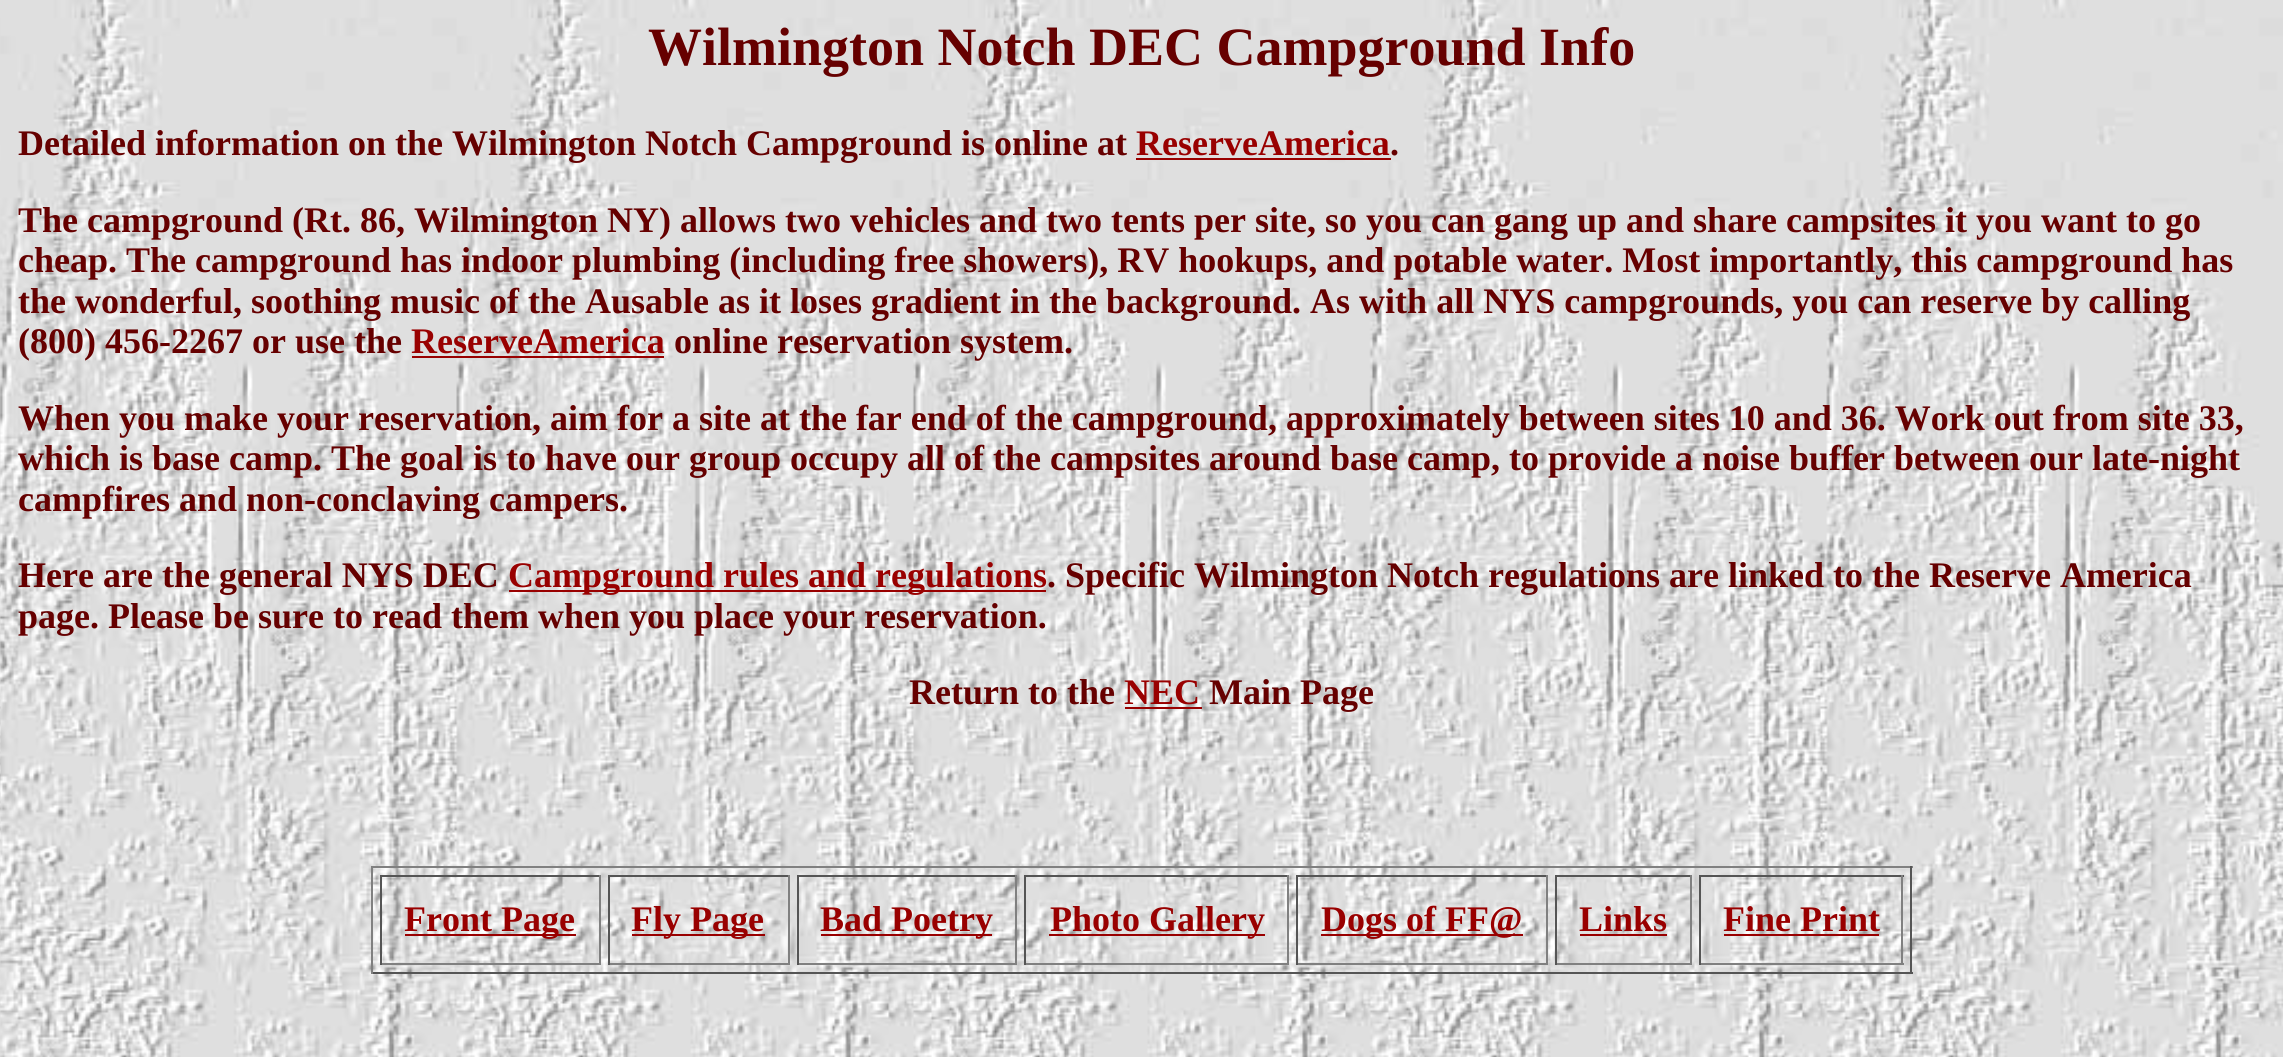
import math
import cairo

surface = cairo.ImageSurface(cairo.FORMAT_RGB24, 2283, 1057)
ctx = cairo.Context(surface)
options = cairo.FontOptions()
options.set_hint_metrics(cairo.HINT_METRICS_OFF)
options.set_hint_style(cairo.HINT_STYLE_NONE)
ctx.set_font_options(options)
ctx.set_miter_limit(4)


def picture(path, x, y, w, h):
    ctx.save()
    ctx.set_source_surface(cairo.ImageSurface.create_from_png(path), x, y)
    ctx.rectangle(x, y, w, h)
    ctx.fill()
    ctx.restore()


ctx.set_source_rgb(1, 1, 1)
ctx.paint()
picture("img1.png", 0, 0, 2283, 1057)
ctx.select_font_face("Liberation Serif", cairo.FONT_SLANT_NORMAL, cairo.FONT_WEIGHT_BOLD)
ctx.set_font_size(54)
ctx.set_source_rgb(0.4, 0, 0)
ctx.move_to(648, 65)
ctx.show_text("Wilmington Notch DEC Campground Info")
ctx.set_font_size(36)
ctx.move_to(18, 155)
ctx.show_text("Detailed information on the Wilmington Notch Campground is online at")
ctx.set_source_rgb(0.6, 0, 0)
ctx.move_to(1136, 155)
ctx.show_text("ReserveAmerica")
ctx.rectangle(1136, 158, 255, 2)
ctx.fill()
ctx.set_source_rgb(0.4, 0, 0)
ctx.move_to(1390, 155)
ctx.show_text(".")
ctx.move_to(18, 232)
ctx.show_text("The campground (Rt. 86, Wilmington NY) allows two vehicles and two tents per site, so you can gang up and share campsites it you want to go")
ctx.move_to(18, 272)
ctx.show_text("cheap. The campground has indoor plumbing (including free showers), RV hookups, and potable water. Most importantly, this campground has")
ctx.move_to(18, 313)
ctx.show_text("the wonderful, soothing music of the Ausable as it loses gradient in the background. As with all NYS campgrounds, you can reserve by calling")
ctx.move_to(18, 353)
ctx.show_text("(800) 456-2267 or use the")
ctx.set_source_rgb(0.6, 0, 0)
ctx.move_to(411, 353)
ctx.show_text("ReserveAmerica")
ctx.rectangle(412, 356, 252, 2)
ctx.fill()
ctx.set_source_rgb(0.4, 0, 0)
ctx.move_to(674, 353)
ctx.show_text("online reservation system.")
ctx.move_to(18, 430)
ctx.show_text("When you make your reservation, aim for a site at the far end of the campground, approximately between sites 10 and 36. Work out from site 33,")
ctx.move_to(18, 470)
ctx.show_text("which is base camp. The goal is to have our group occupy all of the campsites around base camp, to provide a noise buffer between our late-night")
ctx.move_to(18, 511)
ctx.show_text("campfires and non-conclaving campers.")
ctx.move_to(18, 587)
ctx.show_text("Here are the general NYS DEC")
ctx.set_source_rgb(0.6, 0, 0)
ctx.rectangle(509, 590, 537, 2)
ctx.fill()
ctx.move_to(508, 587)
ctx.show_text("Campground rules and regulations")
ctx.set_source_rgb(0.4, 0, 0)
ctx.move_to(1047, 587)
ctx.show_text(". Specific Wilmington Notch regulations are linked to the Reserve America")
ctx.move_to(18, 628)
ctx.show_text("page. Please be sure to read them when you place your reservation.")
ctx.move_to(909, 704)
ctx.show_text("Return to the")
ctx.set_source_rgb(0.6, 0, 0)
ctx.move_to(1124, 704)
ctx.show_text("NEC")
ctx.rectangle(1125, 707, 77, 2)
ctx.fill()
ctx.set_source_rgb(0.4, 0, 0)
ctx.move_to(1209, 704)
ctx.show_text("Main Page")
ctx.set_source_rgb(0.502, 0.502, 0.502)
ctx.rectangle(371, 866, 1542, 2)
ctx.fill()
ctx.set_source_rgb(0.333, 0.333, 0.333)
ctx.rectangle(1910, 866, 2, 108)
ctx.fill()
ctx.rectangle(371, 972, 1542, 2)
ctx.fill()
ctx.set_source_rgb(0.502, 0.502, 0.502)
ctx.rectangle(371, 866, 2, 108)
ctx.fill()
ctx.set_source_rgb(0.333, 0.333, 0.333)
ctx.rectangle(380, 875, 221, 2)
ctx.fill()
ctx.set_source_rgb(0.502, 0.502, 0.502)
ctx.rectangle(599, 875, 2, 90)
ctx.fill()
ctx.rectangle(380, 963, 221, 2)
ctx.fill()
ctx.set_source_rgb(0.333, 0.333, 0.333)
ctx.rectangle(380, 875, 2, 90)
ctx.fill()
ctx.set_source_rgb(0.6, 0, 0)
ctx.rectangle(405, 934, 171, 2)
ctx.fill()
ctx.move_to(404, 931)
ctx.show_text("Front Page")
ctx.set_source_rgb(0.333, 0.333, 0.333)
ctx.rectangle(608, 875, 182, 2)
ctx.fill()
ctx.set_source_rgb(0.502, 0.502, 0.502)
ctx.rectangle(788, 875, 2, 90)
ctx.fill()
ctx.rectangle(608, 963, 182, 2)
ctx.fill()
ctx.set_source_rgb(0.333, 0.333, 0.333)
ctx.rectangle(608, 875, 2, 90)
ctx.fill()
ctx.set_source_rgb(0.6, 0, 0)
ctx.rectangle(632, 934, 133, 2)
ctx.fill()
ctx.move_to(631, 931)
ctx.show_text("Fly Page")
ctx.set_source_rgb(0.333, 0.333, 0.333)
ctx.rectangle(797, 875, 220, 2)
ctx.fill()
ctx.set_source_rgb(0.502, 0.502, 0.502)
ctx.rectangle(1015, 875, 2, 90)
ctx.fill()
ctx.rectangle(797, 963, 220, 2)
ctx.fill()
ctx.set_source_rgb(0.333, 0.333, 0.333)
ctx.rectangle(797, 875, 2, 90)
ctx.fill()
ctx.set_source_rgb(0.6, 0, 0)
ctx.rectangle(821, 934, 171, 2)
ctx.fill()
ctx.move_to(820, 931)
ctx.show_text("Bad Poetry")
ctx.set_source_rgb(0.333, 0.333, 0.333)
ctx.rectangle(1024, 875, 265, 2)
ctx.fill()
ctx.set_source_rgb(0.502, 0.502, 0.502)
ctx.rectangle(1287, 875, 2, 90)
ctx.fill()
ctx.rectangle(1024, 963, 265, 2)
ctx.fill()
ctx.set_source_rgb(0.333, 0.333, 0.333)
ctx.rectangle(1024, 875, 2, 90)
ctx.fill()
ctx.set_source_rgb(0.6, 0, 0)
ctx.rectangle(1049, 934, 216, 2)
ctx.fill()
ctx.move_to(1050, 931)
ctx.show_text("Photo Gallery")
ctx.set_source_rgb(0.333, 0.333, 0.333)
ctx.rectangle(1296, 875, 252, 2)
ctx.fill()
ctx.set_source_rgb(0.502, 0.502, 0.502)
ctx.rectangle(1546, 875, 2, 90)
ctx.fill()
ctx.rectangle(1296, 963, 252, 2)
ctx.fill()
ctx.set_source_rgb(0.333, 0.333, 0.333)
ctx.rectangle(1296, 875, 2, 90)
ctx.fill()
ctx.set_source_rgb(0.6, 0, 0)
ctx.rectangle(1321, 934, 202, 2)
ctx.fill()
ctx.move_to(1321, 931)
ctx.show_text("Dogs of FF@")
ctx.set_source_rgb(0.333, 0.333, 0.333)
ctx.rectangle(1555, 875, 137, 2)
ctx.fill()
ctx.set_source_rgb(0.502, 0.502, 0.502)
ctx.rectangle(1690, 875, 2, 90)
ctx.fill()
ctx.rectangle(1555, 963, 137, 2)
ctx.fill()
ctx.set_source_rgb(0.333, 0.333, 0.333)
ctx.rectangle(1555, 875, 2, 90)
ctx.fill()
ctx.set_source_rgb(0.6, 0, 0)
ctx.move_to(1579, 931)
ctx.show_text("Links")
ctx.rectangle(1580, 934, 87, 2)
ctx.fill()
ctx.set_source_rgb(0.333, 0.333, 0.333)
ctx.rectangle(1699, 875, 205, 2)
ctx.fill()
ctx.set_source_rgb(0.502, 0.502, 0.502)
ctx.rectangle(1901, 875, 2, 90)
ctx.fill()
ctx.rectangle(1699, 963, 205, 2)
ctx.fill()
ctx.set_source_rgb(0.333, 0.333, 0.333)
ctx.rectangle(1699, 875, 2, 90)
ctx.fill()
ctx.set_source_rgb(0.6, 0, 0)
ctx.move_to(1723, 931)
ctx.show_text("Fine Print")
ctx.rectangle(1724, 934, 155, 2)
ctx.fill()
surface.write_to_png("page.png")
